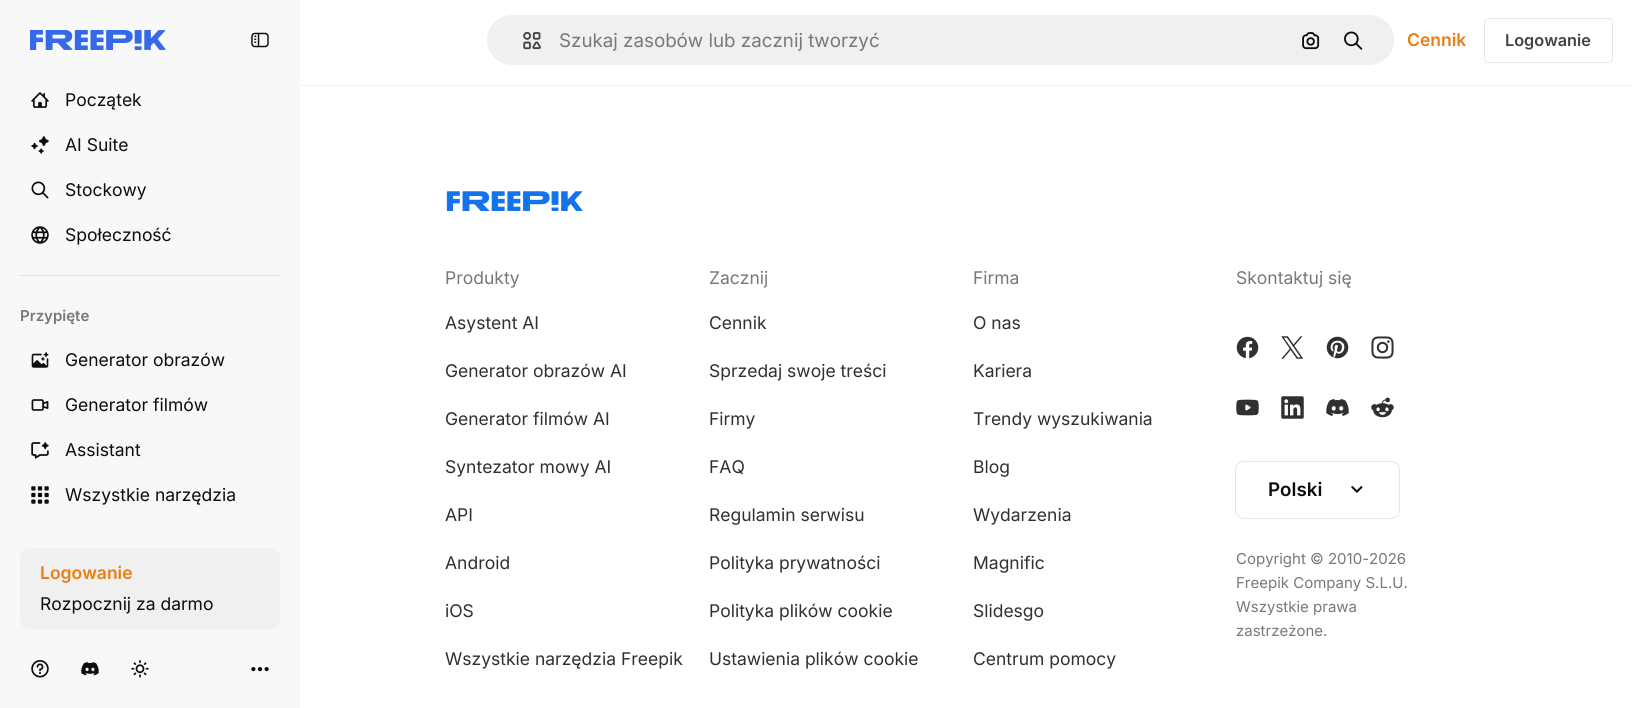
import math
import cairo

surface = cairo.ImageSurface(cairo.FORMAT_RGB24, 1632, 708)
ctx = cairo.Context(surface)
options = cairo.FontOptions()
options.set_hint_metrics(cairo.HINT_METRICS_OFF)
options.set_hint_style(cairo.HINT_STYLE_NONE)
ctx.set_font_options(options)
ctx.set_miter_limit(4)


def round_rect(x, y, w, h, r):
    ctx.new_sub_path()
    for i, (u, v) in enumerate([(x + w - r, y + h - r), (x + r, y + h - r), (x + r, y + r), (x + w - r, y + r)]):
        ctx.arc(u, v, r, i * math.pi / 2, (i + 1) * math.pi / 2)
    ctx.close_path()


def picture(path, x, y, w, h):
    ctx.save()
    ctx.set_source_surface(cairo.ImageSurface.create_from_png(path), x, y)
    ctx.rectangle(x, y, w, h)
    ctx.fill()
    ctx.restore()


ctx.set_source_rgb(1, 1, 1)
ctx.paint()
ctx.set_source_rgb(0.969, 0.969, 0.969)
ctx.rectangle(0, 0, 300, 708)
ctx.fill()
picture("img1.png", 30, 30, 136, 20)
picture("img2.png", 251, 32, 18, 16)
picture("img3.png", 31, 92, 18, 16)
ctx.select_font_face("Inter")
ctx.set_font_size(17.5)
ctx.set_source_rgb(0.051, 0.051, 0.051)
ctx.move_to(65, 106)
ctx.show_text("Początek")
picture("img4.png", 31, 136, 18, 18)
ctx.move_to(65, 151)
ctx.show_text("AI Suite")
picture("img5.png", 31, 181, 18, 18)
ctx.move_to(65, 196)
ctx.show_text("Stockowy")
picture("img6.png", 31, 226, 18, 18)
ctx.move_to(65, 241)
ctx.show_text("Społeczność")
ctx.set_source_rgb(0.878, 0.878, 0.878)
ctx.rectangle(20, 275, 260, 1)
ctx.fill()
ctx.select_font_face("Inter SemiBold")
ctx.set_font_size(15)
ctx.set_source_rgb(0.471, 0.471, 0.471)
ctx.move_to(20, 321)
ctx.show_text("Przypięte")
picture("img7.png", 31, 352, 18, 16)
ctx.select_font_face("Inter")
ctx.set_font_size(17.5)
ctx.set_source_rgb(0.051, 0.051, 0.051)
ctx.move_to(65, 366)
ctx.show_text("Generator obrazów")
picture("img8.png", 31, 399, 18, 12)
ctx.move_to(65, 411)
ctx.show_text("Generator filmów")
picture("img9.png", 31, 442, 18, 17)
ctx.move_to(65, 456)
ctx.show_text("Assistant")
picture("img10.png", 31, 486, 18, 18)
ctx.move_to(65, 501)
ctx.show_text("Wszystkie narzędzia")
ctx.set_source_rgb(0.941, 0.941, 0.941)
round_rect(20, 548, 260, 81, 10)
ctx.fill()
ctx.select_font_face("Inter SemiBold")
ctx.set_source_rgb(0.918, 0.494, 0.067)
ctx.move_to(40, 579)
ctx.show_text("Logowanie")
ctx.select_font_face("Inter")
ctx.set_source_rgb(0.051, 0.051, 0.051)
ctx.move_to(40, 610)
ctx.show_text("Rozpocznij za darmo")
picture("img11.png", 31, 660, 18, 18)
picture("img12.png", 81, 662, 18, 14)
picture("img13.png", 131, 660, 18, 18)
picture("img14.png", 251, 667, 18, 5)
ctx.set_source_rgb(0.941, 0.941, 0.941)
round_rect(486.5, 14.5, 908, 51, 25.5)
ctx.fill_preserve()
ctx.set_source_rgb(1, 1, 1)
ctx.set_line_width(1)
ctx.stroke()
picture("img15.png", 523, 31, 18, 19)
ctx.set_font_size(18.75)
ctx.set_source_rgb(0.471, 0.471, 0.471)
ctx.move_to(559, 47)
ctx.show_text("Szukaj zasobów lub zacznij tworzyć")
picture("img16.png", 1302, 32, 18, 18)
picture("img17.png", 1344, 31, 19, 19)
ctx.select_font_face("Inter SemiBold")
ctx.set_font_size(17.5)
ctx.set_source_rgb(0.918, 0.494, 0.067)
ctx.move_to(1407, 46)
ctx.show_text("Cennik")
round_rect(1484.5, 18.5, 128, 44, 4.5)
ctx.set_source_rgb(0.906, 0.906, 0.906)
ctx.stroke()
ctx.set_font_size(16.25)
ctx.set_source_rgb(0.259, 0.259, 0.259)
ctx.move_to(1505, 46)
ctx.show_text("Logowanie")
ctx.set_source_rgb(0.941, 0.941, 0.941)
ctx.rectangle(300, 85, 1332, 1)
ctx.fill()
picture("img18.png", 446, 191, 137, 20)
ctx.select_font_face("Inter")
ctx.set_font_size(17.5)
ctx.set_source_rgb(0.471, 0.471, 0.471)
ctx.move_to(445, 284)
ctx.show_text("Produkty")
ctx.set_source_rgb(0.188, 0.188, 0.188)
ctx.move_to(445, 329)
ctx.show_text("Asystent AI")
ctx.move_to(445, 377)
ctx.show_text("Generator obrazów AI")
ctx.move_to(445, 425)
ctx.show_text("Generator filmów AI")
ctx.move_to(445, 473)
ctx.show_text("Syntezator mowy AI")
ctx.move_to(445, 521)
ctx.show_text("API")
ctx.move_to(445, 569)
ctx.show_text("Android")
ctx.move_to(445, 617)
ctx.show_text("iOS")
ctx.move_to(445, 665)
ctx.show_text("Wszystkie narzędzia Freepik")
ctx.set_source_rgb(0.471, 0.471, 0.471)
ctx.move_to(709, 284)
ctx.show_text("Zacznij")
ctx.set_source_rgb(0.188, 0.188, 0.188)
ctx.move_to(709, 329)
ctx.show_text("Cennik")
ctx.move_to(709, 377)
ctx.show_text("Sprzedaj swoje treści")
ctx.move_to(709, 425)
ctx.show_text("Firmy")
ctx.move_to(709, 473)
ctx.show_text("FAQ")
ctx.move_to(709, 521)
ctx.show_text("Regulamin serwisu")
ctx.move_to(709, 569)
ctx.show_text("Polityka prywatności")
ctx.move_to(709, 617)
ctx.show_text("Polityka plików cookie")
ctx.move_to(709, 665)
ctx.show_text("Ustawienia plików cookie")
ctx.set_source_rgb(0.471, 0.471, 0.471)
ctx.move_to(973, 284)
ctx.show_text("Firma")
ctx.set_source_rgb(0.188, 0.188, 0.188)
ctx.move_to(973, 329)
ctx.show_text("O nas")
ctx.move_to(973, 377)
ctx.show_text("Kariera")
ctx.move_to(973, 425)
ctx.show_text("Trendy wyszukiwania")
ctx.move_to(973, 473)
ctx.show_text("Blog")
ctx.move_to(973, 521)
ctx.show_text("Wydarzenia")
ctx.move_to(973, 569)
ctx.show_text("Magnific")
ctx.move_to(973, 617)
ctx.show_text("Slidesgo")
ctx.move_to(973, 665)
ctx.show_text("Centrum pomocy")
ctx.set_source_rgb(0.471, 0.471, 0.471)
ctx.move_to(1236, 284)
ctx.show_text("Skontaktuj się")
picture("img19.png", 1236, 336, 23, 23)
picture("img20.png", 1281, 336, 23, 23)
picture("img21.png", 1326, 336, 23, 23)
picture("img22.png", 1371, 336, 23, 23)
picture("img23.png", 1236, 399, 23, 17)
picture("img24.png", 1281, 396, 23, 23)
picture("img25.png", 1326, 399, 23, 17)
picture("img26.png", 1371, 397, 23, 21)
round_rect(1235.5, 461.5, 164, 57, 8.5)
ctx.set_source_rgb(0.902, 0.902, 0.902)
ctx.stroke()
ctx.select_font_face("Inter SemiBold")
ctx.set_font_size(18.75)
ctx.set_source_rgb(0.051, 0.051, 0.051)
ctx.move_to(1268, 496)
ctx.show_text("Polski")
picture("img27.png", 1351, 486, 12, 7)
ctx.select_font_face("Inter")
ctx.set_font_size(15)
ctx.set_source_rgb(0.471, 0.471, 0.471)
ctx.move_to(1236, 564)
ctx.show_text("Copyright © 2010-2026")
ctx.move_to(1236, 588)
ctx.show_text("Freepik Company S.L.U.")
ctx.move_to(1236, 612)
ctx.show_text("Wszystkie prawa")
ctx.move_to(1236, 636)
ctx.show_text("zastrzeżone.")
surface.write_to_png("page.png")
